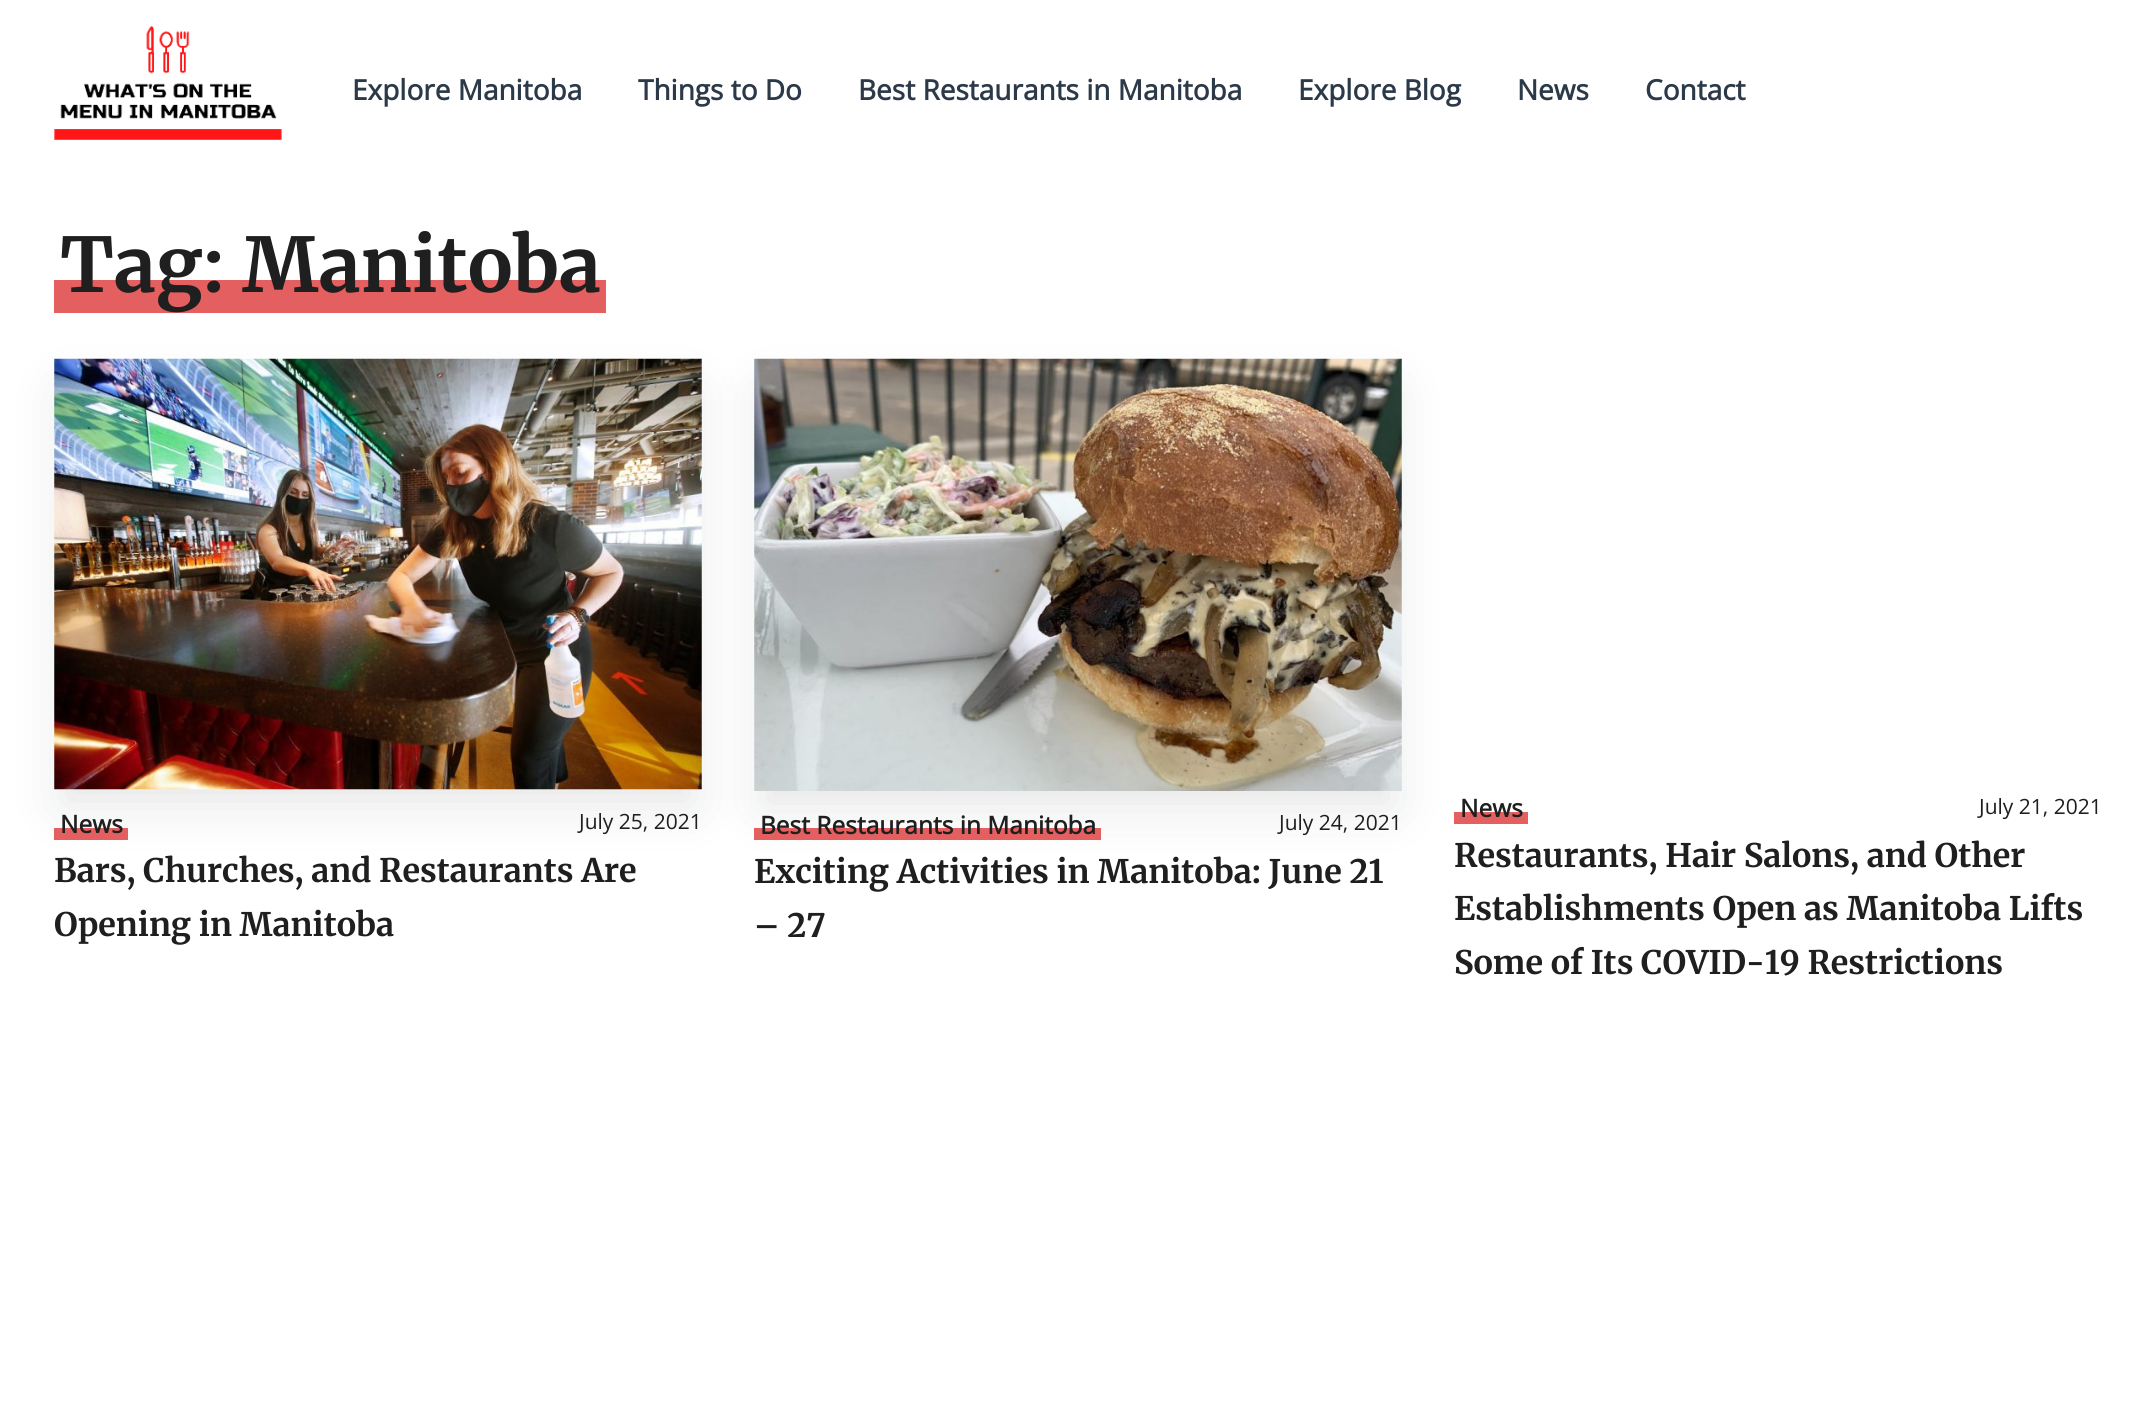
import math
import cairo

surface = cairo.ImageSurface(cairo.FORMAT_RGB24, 2155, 1417)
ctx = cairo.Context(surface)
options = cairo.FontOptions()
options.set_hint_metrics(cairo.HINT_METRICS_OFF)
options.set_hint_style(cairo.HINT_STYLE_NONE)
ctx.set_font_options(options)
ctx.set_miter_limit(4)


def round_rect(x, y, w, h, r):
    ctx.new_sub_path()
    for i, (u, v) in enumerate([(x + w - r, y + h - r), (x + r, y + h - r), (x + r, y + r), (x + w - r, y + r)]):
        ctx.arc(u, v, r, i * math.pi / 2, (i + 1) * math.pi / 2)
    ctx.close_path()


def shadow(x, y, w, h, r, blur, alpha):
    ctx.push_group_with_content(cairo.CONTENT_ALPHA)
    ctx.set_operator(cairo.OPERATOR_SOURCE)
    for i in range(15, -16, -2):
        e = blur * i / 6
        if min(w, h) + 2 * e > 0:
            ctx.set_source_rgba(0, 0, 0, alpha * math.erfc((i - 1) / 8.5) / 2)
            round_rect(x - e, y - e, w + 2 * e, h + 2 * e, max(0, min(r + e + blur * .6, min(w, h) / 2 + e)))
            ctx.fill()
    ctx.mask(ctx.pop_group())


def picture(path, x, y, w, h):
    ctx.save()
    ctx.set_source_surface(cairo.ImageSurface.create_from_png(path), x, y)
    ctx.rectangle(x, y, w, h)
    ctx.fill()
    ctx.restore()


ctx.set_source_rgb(1, 1, 1)
ctx.paint()
picture("img1.png", 54, 26, 228, 114)
ctx.select_font_face("Open Sans", cairo.FONT_SLANT_NORMAL, cairo.FONT_WEIGHT_BOLD)
ctx.set_font_size(28)
ctx.set_source_rgb(0.169, 0.224, 0.282)
ctx.move_to(352, 100)
ctx.show_text("Explore Manitoba")
ctx.move_to(638, 100)
ctx.show_text("Things to Do")
ctx.move_to(858, 100)
ctx.show_text("Best Restaurants in Manitoba")
ctx.move_to(1298, 100)
ctx.show_text("Explore Blog")
ctx.move_to(1517, 100)
ctx.show_text("News")
ctx.move_to(1645, 100)
ctx.show_text("Contact")
ctx.set_source_rgb(0.894, 0.373, 0.373)
ctx.rectangle(54, 280, 552, 33)
ctx.fill()
ctx.select_font_face("Merriweather", cairo.FONT_SLANT_NORMAL, cairo.FONT_WEIGHT_BOLD)
ctx.set_font_size(75.25)
ctx.set_source_rgb(0.122, 0.122, 0.122)
ctx.move_to(60, 292)
ctx.show_text("Tag: Manitoba")
ctx.set_source_rgb(0.055, 0.067, 0.078)
shadow(61, 390, 634, 417, 0, 24.5, 0.1)
picture("img2.png", 54, 358, 648, 432)
ctx.set_source_rgb(0.894, 0.373, 0.373)
ctx.rectangle(54, 828, 74, 12)
ctx.fill()
ctx.select_font_face("Open Sans", cairo.FONT_SLANT_NORMAL, cairo.FONT_WEIGHT_BOLD)
ctx.set_font_size(24.5)
ctx.set_source_rgb(0.122, 0.122, 0.122)
ctx.move_to(60, 833)
ctx.show_text("News")
ctx.select_font_face("Open Sans")
ctx.set_font_size(21)
ctx.move_to(579, 829)
ctx.show_text("July 25, 2021")
ctx.select_font_face("Merriweather", cairo.FONT_SLANT_NORMAL, cairo.FONT_WEIGHT_BOLD)
ctx.set_font_size(32.4)
ctx.move_to(54, 882)
ctx.show_text("Bars, Churches, and Restaurants Are")
ctx.move_to(54, 936)
ctx.show_text("Opening in Manitoba")
ctx.set_source_rgb(0.055, 0.067, 0.078)
shadow(761, 390, 634, 419, 0, 24.5, 0.1)
picture("img3.png", 754, 358, 648, 433)
ctx.set_source_rgb(0.894, 0.373, 0.373)
ctx.rectangle(754, 828, 347, 12)
ctx.fill()
ctx.select_font_face("Open Sans", cairo.FONT_SLANT_NORMAL, cairo.FONT_WEIGHT_BOLD)
ctx.set_font_size(24.5)
ctx.set_source_rgb(0.122, 0.122, 0.122)
ctx.move_to(760, 834)
ctx.show_text("Best Restaurants in Manitoba")
ctx.select_font_face("Open Sans")
ctx.set_font_size(21)
ctx.move_to(1279, 830)
ctx.show_text("July 24, 2021")
ctx.select_font_face("Merriweather", cairo.FONT_SLANT_NORMAL, cairo.FONT_WEIGHT_BOLD)
ctx.set_font_size(32.4)
ctx.move_to(754, 883)
ctx.show_text("Exciting Activities in Manitoba: June 21")
ctx.move_to(754, 937)
ctx.show_text("– 27")
ctx.set_source_rgb(0.894, 0.373, 0.373)
ctx.rectangle(1454, 812, 74, 12)
ctx.fill()
ctx.select_font_face("Open Sans", cairo.FONT_SLANT_NORMAL, cairo.FONT_WEIGHT_BOLD)
ctx.set_font_size(24.5)
ctx.set_source_rgb(0.122, 0.122, 0.122)
ctx.move_to(1460, 817)
ctx.show_text("News")
ctx.select_font_face("Open Sans")
ctx.set_font_size(21)
ctx.move_to(1979, 814)
ctx.show_text("July 21, 2021")
ctx.select_font_face("Merriweather", cairo.FONT_SLANT_NORMAL, cairo.FONT_WEIGHT_BOLD)
ctx.set_font_size(32.4)
ctx.move_to(1454, 867)
ctx.show_text("Restaurants, Hair Salons, and Other")
ctx.move_to(1454, 920)
ctx.show_text("Establishments Open as Manitoba Lifts")
ctx.move_to(1454, 974)
ctx.show_text("Some of Its COVID-19 Restrictions")
surface.write_to_png("page.png")
